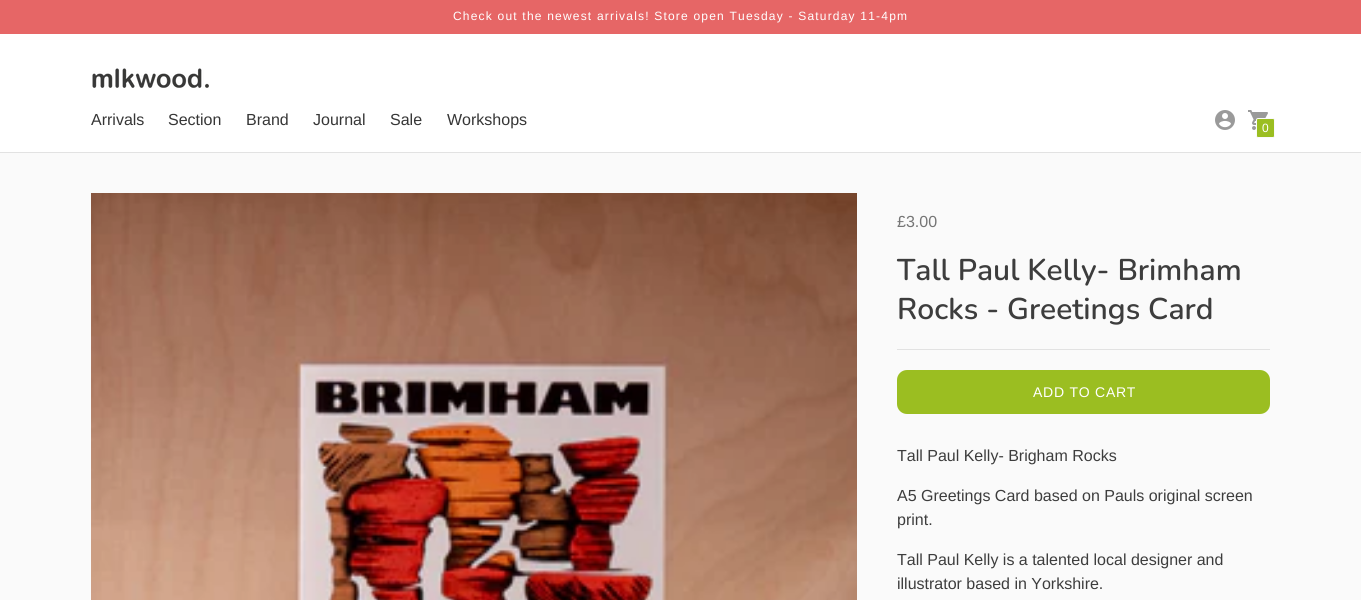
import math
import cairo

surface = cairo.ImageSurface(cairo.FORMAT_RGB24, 1361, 600)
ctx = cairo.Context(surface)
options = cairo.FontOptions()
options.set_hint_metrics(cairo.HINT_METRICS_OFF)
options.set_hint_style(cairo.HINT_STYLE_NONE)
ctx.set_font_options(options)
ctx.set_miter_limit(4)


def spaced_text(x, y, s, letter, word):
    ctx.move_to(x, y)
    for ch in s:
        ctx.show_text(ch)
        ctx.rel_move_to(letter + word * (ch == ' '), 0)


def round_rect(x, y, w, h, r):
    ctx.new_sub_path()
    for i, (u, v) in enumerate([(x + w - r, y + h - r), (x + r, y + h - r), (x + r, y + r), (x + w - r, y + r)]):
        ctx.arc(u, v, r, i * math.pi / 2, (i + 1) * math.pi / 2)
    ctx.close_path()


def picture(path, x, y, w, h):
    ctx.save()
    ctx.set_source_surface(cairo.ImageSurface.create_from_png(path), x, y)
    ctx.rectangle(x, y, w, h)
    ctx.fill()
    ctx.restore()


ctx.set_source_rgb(0.98, 0.98, 0.98)
ctx.paint()
ctx.set_source_rgb(0.902, 0.4, 0.4)
ctx.rectangle(0, 0, 1361, 34)
ctx.fill()
ctx.select_font_face("Arimo")
ctx.set_font_size(12)
ctx.set_source_rgb(1, 1, 1)
spaced_text(453, 20, "Check out the newest arrivals! Store open Tuesday - Saturday 11-4pm", 1.2, 0)
ctx.rectangle(0, 34, 1361, 118)
ctx.fill()
ctx.set_source_rgb(0.886, 0.886, 0.886)
ctx.rectangle(0, 152, 1361, 1)
ctx.fill()
picture("img1.png", 92, 68, 117, 20)
ctx.set_font_size(16)
ctx.set_source_rgb(0.212, 0.212, 0.212)
ctx.move_to(91, 125)
ctx.show_text("Arrivals")
ctx.move_to(168, 125)
ctx.show_text("Section")
ctx.move_to(246, 125)
ctx.show_text("Brand")
ctx.move_to(313, 125)
ctx.show_text("Journal")
ctx.move_to(390, 125)
ctx.show_text("Sale")
ctx.move_to(447, 125)
ctx.show_text("Workshops")
picture("img2.png", 1215, 110, 20, 20)
picture("img3.png", 1248, 110, 20, 20)
ctx.set_source_rgb(0.608, 0.745, 0.129)
round_rect(1256.5, 118.5, 18, 19, 1.5)
ctx.fill_preserve()
ctx.set_source_rgb(0.98, 0.98, 0.98)
ctx.set_line_width(1)
ctx.stroke()
ctx.set_font_size(12)
ctx.set_source_rgb(1, 1, 1)
ctx.move_to(1262, 132)
ctx.show_text("0")
picture("img4.png", 91, 193, 766, 407)
ctx.set_source_rgb(0.886, 0.886, 0.886)
ctx.rectangle(897, 349, 373, 1)
ctx.fill()
ctx.set_font_size(16)
ctx.set_source_rgb(0.459, 0.459, 0.459)
ctx.move_to(897, 227)
ctx.show_text("£3.00")
ctx.select_font_face("Nunito SemiBold")
ctx.set_font_size(30)
ctx.set_source_rgb(0.239, 0.239, 0.239)
ctx.move_to(897, 280)
ctx.show_text("Tall Paul Kelly- Brimham")
ctx.move_to(897, 319)
ctx.show_text("Rocks - Greetings Card")
ctx.set_source_rgb(0.608, 0.745, 0.129)
round_rect(897, 370, 373, 44, 10)
ctx.fill()
ctx.select_font_face("Arimo")
ctx.set_font_size(14)
ctx.set_source_rgb(1, 1, 1)
spaced_text(1033, 397, "ADD TO CART", 0.75, 0)
ctx.set_font_size(16)
ctx.set_source_rgb(0.239, 0.239, 0.239)
ctx.move_to(897, 461)
ctx.show_text("Tall Paul Kelly- Brigham Rocks")
ctx.move_to(897, 501)
ctx.show_text("A5 Greetings Card based on Pauls original screen")
ctx.move_to(897, 525)
ctx.show_text("print.")
ctx.move_to(897, 565)
ctx.show_text("Tall Paul Kelly is a talented local designer and")
ctx.move_to(897, 589)
ctx.show_text("illustrator based in Yorkshire.")
surface.write_to_png("page.png")
